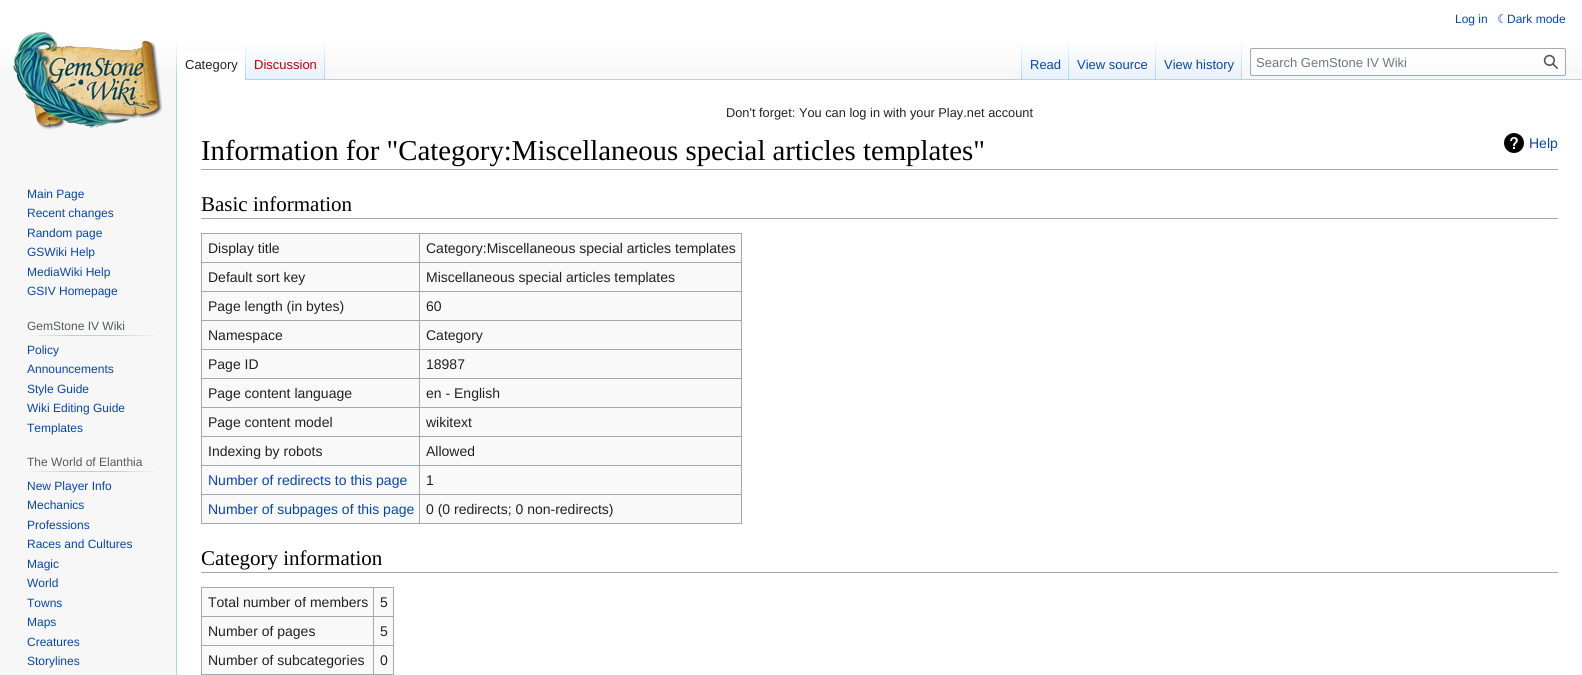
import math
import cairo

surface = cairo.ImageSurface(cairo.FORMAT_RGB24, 1582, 675)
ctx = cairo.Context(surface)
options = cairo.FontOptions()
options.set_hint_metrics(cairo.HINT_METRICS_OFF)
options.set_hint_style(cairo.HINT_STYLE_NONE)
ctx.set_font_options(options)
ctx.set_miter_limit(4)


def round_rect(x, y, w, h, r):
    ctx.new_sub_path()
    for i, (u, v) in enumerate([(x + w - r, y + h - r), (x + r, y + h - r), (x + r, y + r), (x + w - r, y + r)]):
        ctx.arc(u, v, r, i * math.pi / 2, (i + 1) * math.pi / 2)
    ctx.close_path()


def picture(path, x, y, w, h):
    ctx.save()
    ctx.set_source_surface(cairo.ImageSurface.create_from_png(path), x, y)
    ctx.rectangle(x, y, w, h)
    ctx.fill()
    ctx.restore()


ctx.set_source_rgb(0.965, 0.965, 0.965)
ctx.paint()
gradient = cairo.LinearGradient(791, 0, 791, 80)
gradient.add_color_stop_rgba(0.5, 1, 1, 1, 1)
gradient.add_color_stop_rgba(1, 0.965, 0.965, 0.965, 1)
ctx.set_source(gradient)
ctx.rectangle(0, 0, 1582, 69)
ctx.fill()
ctx.select_font_face("Liberation Sans")
ctx.set_font_size(12)
ctx.set_source_rgb(0.024, 0.271, 0.678)
ctx.move_to(1455, 23)
ctx.show_text("Log in")
ctx.select_font_face("DejaVu Sans")
ctx.move_to(1497, 23)
ctx.show_text("☾")
ctx.select_font_face("Liberation Sans")
ctx.move_to(1507, 23)
ctx.show_text("Dark mode")
ctx.set_source_rgb(0.655, 0.843, 0.976)
ctx.rectangle(176, 79, 1, 596)
ctx.fill()
gradient = cairo.LinearGradient(177, 40, 177, 80)
gradient.add_color_stop_rgba(0, 0.655, 0.843, 0.976, 0)
gradient.add_color_stop_rgba(1, 0.655, 0.843, 0.976, 1)
ctx.set_source(gradient)
ctx.rectangle(176, 40, 1, 40)
ctx.fill()
ctx.set_source_rgb(1, 1, 1)
ctx.rectangle(177, 51, 68, 29)
ctx.fill()
gradient = cairo.LinearGradient(246, 40, 246, 80)
gradient.add_color_stop_rgba(0, 1, 1, 1, 1)
gradient.add_color_stop_rgba(1, 0.655, 0.843, 0.976, 1)
ctx.set_source(gradient)
ctx.rectangle(245, 40, 1, 40)
ctx.fill()
ctx.set_font_size(13)
ctx.set_source_rgb(0.125, 0.129, 0.133)
ctx.move_to(185, 69)
ctx.show_text("Category")
gradient = cairo.LinearGradient(286, 80, 286, 40)
gradient.add_color_stop_rgba(0, 0.467, 0.757, 0.965, 1)
gradient.add_color_stop_rgba(0.03, 0.91, 0.949, 0.973, 1)
gradient.add_color_stop_rgba(1, 1, 1, 1, 1)
ctx.set_source(gradient)
ctx.rectangle(246, 46, 79, 34)
ctx.fill()
gradient = cairo.LinearGradient(325, 40, 325, 80)
gradient.add_color_stop_rgba(0, 0.655, 0.843, 0.976, 0)
gradient.add_color_stop_rgba(1, 0.655, 0.843, 0.976, 1)
ctx.set_source(gradient)
ctx.rectangle(324, 40, 1, 40)
ctx.fill()
ctx.set_source_rgb(0.729, 0, 0)
ctx.move_to(254, 69)
ctx.show_text("Discussion")
ctx.set_source_rgb(0.655, 0.843, 0.976)
ctx.rectangle(325, 79, 1257, 1)
ctx.fill()
gradient = cairo.LinearGradient(1022, 40, 1022, 80)
gradient.add_color_stop_rgba(0, 0.655, 0.843, 0.976, 0)
gradient.add_color_stop_rgba(1, 0.655, 0.843, 0.976, 1)
ctx.set_source(gradient)
ctx.rectangle(1021, 40, 1, 40)
ctx.fill()
gradient = cairo.LinearGradient(1046, 80, 1046, 40)
gradient.add_color_stop_rgba(0, 0.467, 0.757, 0.965, 1)
gradient.add_color_stop_rgba(0.03, 0.91, 0.949, 0.973, 1)
gradient.add_color_stop_rgba(1, 1, 1, 1, 1)
ctx.set_source(gradient)
ctx.rectangle(1022, 46, 47, 33)
ctx.fill()
gradient = cairo.LinearGradient(1069, 40, 1069, 80)
gradient.add_color_stop_rgba(0, 0.655, 0.843, 0.976, 0)
gradient.add_color_stop_rgba(1, 0.655, 0.843, 0.976, 1)
ctx.set_source(gradient)
ctx.rectangle(1068, 40, 1, 40)
ctx.fill()
ctx.set_source_rgb(0.024, 0.271, 0.678)
ctx.move_to(1030, 69)
ctx.show_text("Read")
gradient = cairo.LinearGradient(1113, 80, 1113, 40)
gradient.add_color_stop_rgba(0, 0.467, 0.757, 0.965, 1)
gradient.add_color_stop_rgba(0.03, 0.91, 0.949, 0.973, 1)
gradient.add_color_stop_rgba(1, 1, 1, 1, 1)
ctx.set_source(gradient)
ctx.rectangle(1069, 46, 87, 33)
ctx.fill()
gradient = cairo.LinearGradient(1156, 40, 1156, 80)
gradient.add_color_stop_rgba(0, 0.655, 0.843, 0.976, 0)
gradient.add_color_stop_rgba(1, 0.655, 0.843, 0.976, 1)
ctx.set_source(gradient)
ctx.rectangle(1155, 40, 1, 40)
ctx.fill()
ctx.set_source_rgb(0.024, 0.271, 0.678)
ctx.move_to(1077, 69)
ctx.show_text("View source")
gradient = cairo.LinearGradient(1199, 80, 1199, 40)
gradient.add_color_stop_rgba(0, 0.467, 0.757, 0.965, 1)
gradient.add_color_stop_rgba(0.03, 0.91, 0.949, 0.973, 1)
gradient.add_color_stop_rgba(1, 1, 1, 1, 1)
ctx.set_source(gradient)
ctx.rectangle(1156, 46, 86, 33)
ctx.fill()
gradient = cairo.LinearGradient(1242, 40, 1242, 80)
gradient.add_color_stop_rgba(0, 0.655, 0.843, 0.976, 0)
gradient.add_color_stop_rgba(1, 0.655, 0.843, 0.976, 1)
ctx.set_source(gradient)
ctx.rectangle(1241, 40, 1, 40)
ctx.fill()
ctx.set_source_rgb(0.024, 0.271, 0.678)
ctx.move_to(1164, 69)
ctx.show_text("View history")
ctx.set_source_rgba(1, 1, 1, 0.5)
round_rect(1250.5, 48.5, 315, 27, 1.5)
ctx.fill_preserve()
ctx.set_source_rgb(0.635, 0.663, 0.694)
ctx.set_line_width(1)
ctx.stroke()
ctx.set_source_rgb(0.447, 0.467, 0.49)
ctx.move_to(1256, 67)
ctx.show_text("Search GemStone IV Wiki")
picture("img1.png", 1543, 54, 15, 15)
picture("img2.png", 13, 31, 150, 99)
ctx.set_font_size(12)
ctx.set_source_rgb(0.024, 0.271, 0.678)
ctx.move_to(27, 198)
ctx.show_text("Main Page")
ctx.move_to(27, 217)
ctx.show_text("Recent changes")
ctx.move_to(27, 237)
ctx.show_text("Random page")
ctx.move_to(27, 256)
ctx.show_text("GSWiki Help")
ctx.move_to(27, 276)
ctx.show_text("MediaWiki Help")
ctx.move_to(27, 295)
ctx.show_text("GSIV Homepage")
gradient = cairo.LinearGradient(27, 336, 158, 336)
gradient.add_color_stop_rgba(0, 0.965, 0.965, 0.965, 1)
gradient.add_color_stop_rgba(0.33, 0.784, 0.8, 0.82, 1)
gradient.add_color_stop_rgba(0.66, 0.784, 0.8, 0.82, 1)
gradient.add_color_stop_rgba(1, 0.965, 0.965, 0.965, 1)
ctx.set_source(gradient)
ctx.rectangle(27, 335, 131, 1)
ctx.fill()
ctx.set_source_rgb(0.329, 0.349, 0.365)
ctx.move_to(27, 330)
ctx.show_text("GemStone IV Wiki")
ctx.set_source_rgb(0.024, 0.271, 0.678)
ctx.move_to(27, 354)
ctx.show_text("Policy")
ctx.move_to(27, 373)
ctx.show_text("Announcements")
ctx.move_to(27, 393)
ctx.show_text("Style Guide")
ctx.move_to(27, 412)
ctx.show_text("Wiki Editing Guide")
ctx.move_to(27, 432)
ctx.show_text("Templates")
gradient = cairo.LinearGradient(27, 472, 158, 472)
gradient.add_color_stop_rgba(0, 0.965, 0.965, 0.965, 1)
gradient.add_color_stop_rgba(0.33, 0.784, 0.8, 0.82, 1)
gradient.add_color_stop_rgba(0.66, 0.784, 0.8, 0.82, 1)
gradient.add_color_stop_rgba(1, 0.965, 0.965, 0.965, 1)
ctx.set_source(gradient)
ctx.rectangle(27, 471, 131, 1)
ctx.fill()
ctx.set_source_rgb(0.329, 0.349, 0.365)
ctx.move_to(27, 466)
ctx.show_text("The World of Elanthia")
ctx.set_source_rgb(0.024, 0.271, 0.678)
ctx.move_to(27, 490)
ctx.show_text("New Player Info")
ctx.move_to(27, 509)
ctx.show_text("Mechanics")
ctx.move_to(27, 529)
ctx.show_text("Professions")
ctx.move_to(27, 548)
ctx.show_text("Races and Cultures")
ctx.move_to(27, 568)
ctx.show_text("Magic")
ctx.move_to(27, 587)
ctx.show_text("World")
ctx.move_to(27, 607)
ctx.show_text("Towns")
ctx.move_to(27, 626)
ctx.show_text("Maps")
ctx.move_to(27, 646)
ctx.show_text("Creatures")
ctx.move_to(27, 665)
ctx.show_text("Storylines")
ctx.set_source_rgb(1, 1, 1)
ctx.rectangle(177, 80, 1405, 595)
ctx.fill()
ctx.set_font_size(12.8)
ctx.set_source_rgb(0.125, 0.129, 0.133)
ctx.move_to(726, 117)
ctx.show_text("Don't forget: You can log in with your Play.net account")
ctx.set_source_rgb(0.635, 0.663, 0.694)
ctx.rectangle(201, 169, 1357, 1)
ctx.fill()
ctx.select_font_face("Liberation Serif")
ctx.set_font_size(28.8)
ctx.set_source_rgb(0, 0, 0)
ctx.move_to(201, 160)
ctx.show_text("Information for \"Category:Miscellaneous special articles templates\"")
picture("img3.png", 1504, 133, 20, 20)
ctx.select_font_face("Liberation Sans")
ctx.set_font_size(14)
ctx.set_source_rgb(0.024, 0.271, 0.678)
ctx.move_to(1529, 148)
ctx.show_text("Help")
ctx.set_source_rgb(0.635, 0.663, 0.694)
ctx.rectangle(201, 218, 1357, 1)
ctx.fill()
ctx.select_font_face("Liberation Serif")
ctx.set_font_size(21)
ctx.set_source_rgb(0, 0, 0)
ctx.move_to(201, 211)
ctx.show_text("Basic information")
ctx.set_source_rgb(0.973, 0.976, 0.98)
ctx.rectangle(202, 234, 539, 289)
ctx.fill()
ctx.set_source_rgb(0.635, 0.663, 0.694)
ctx.rectangle(201, 233, 541, 1)
ctx.fill()
ctx.rectangle(741, 233, 1, 291)
ctx.fill()
ctx.rectangle(201, 523, 541, 1)
ctx.fill()
ctx.rectangle(201, 233, 1, 291)
ctx.fill()
ctx.select_font_face("Liberation Sans")
ctx.set_font_size(14)
ctx.set_source_rgb(0.125, 0.129, 0.133)
ctx.move_to(208, 253)
ctx.show_text("Display title")
ctx.set_source_rgb(0.635, 0.663, 0.694)
ctx.rectangle(419, 262, 323, 1)
ctx.fill()
ctx.rectangle(419, 291, 323, 1)
ctx.fill()
ctx.rectangle(419, 320, 323, 1)
ctx.fill()
ctx.rectangle(419, 349, 323, 1)
ctx.fill()
ctx.rectangle(419, 378, 323, 1)
ctx.fill()
ctx.rectangle(419, 407, 323, 1)
ctx.fill()
ctx.rectangle(419, 436, 323, 1)
ctx.fill()
ctx.rectangle(419, 465, 323, 1)
ctx.fill()
ctx.rectangle(419, 494, 323, 1)
ctx.fill()
ctx.rectangle(419, 494, 1, 30)
ctx.fill()
ctx.rectangle(201, 494, 219, 1)
ctx.fill()
ctx.rectangle(419, 465, 1, 30)
ctx.fill()
ctx.rectangle(201, 465, 219, 1)
ctx.fill()
ctx.rectangle(419, 436, 1, 30)
ctx.fill()
ctx.rectangle(201, 436, 219, 1)
ctx.fill()
ctx.rectangle(419, 407, 1, 30)
ctx.fill()
ctx.rectangle(201, 407, 219, 1)
ctx.fill()
ctx.rectangle(419, 378, 1, 30)
ctx.fill()
ctx.rectangle(201, 378, 219, 1)
ctx.fill()
ctx.rectangle(419, 349, 1, 30)
ctx.fill()
ctx.rectangle(201, 349, 219, 1)
ctx.fill()
ctx.rectangle(419, 320, 1, 30)
ctx.fill()
ctx.rectangle(201, 320, 219, 1)
ctx.fill()
ctx.rectangle(419, 291, 1, 30)
ctx.fill()
ctx.rectangle(201, 291, 219, 1)
ctx.fill()
ctx.rectangle(419, 262, 1, 30)
ctx.fill()
ctx.rectangle(201, 262, 219, 1)
ctx.fill()
ctx.rectangle(419, 233, 1, 30)
ctx.fill()
ctx.set_source_rgb(0.125, 0.129, 0.133)
ctx.move_to(426, 253)
ctx.show_text("Category:Miscellaneous special articles templates")
ctx.move_to(208, 282)
ctx.show_text("Default sort key")
ctx.move_to(426, 282)
ctx.show_text("Miscellaneous special articles templates")
ctx.move_to(208, 311)
ctx.show_text("Page length (in bytes)")
ctx.move_to(426, 311)
ctx.show_text("60")
ctx.move_to(208, 340)
ctx.show_text("Namespace")
ctx.move_to(426, 340)
ctx.show_text("Category")
ctx.move_to(208, 369)
ctx.show_text("Page ID")
ctx.move_to(426, 369)
ctx.show_text("18987")
ctx.move_to(208, 398)
ctx.show_text("Page content language")
ctx.move_to(426, 398)
ctx.show_text("en - English")
ctx.move_to(208, 427)
ctx.show_text("Page content model")
ctx.move_to(426, 427)
ctx.show_text("wikitext")
ctx.move_to(208, 456)
ctx.show_text("Indexing by robots")
ctx.move_to(426, 456)
ctx.show_text("Allowed")
ctx.set_source_rgb(0.024, 0.271, 0.678)
ctx.move_to(208, 485)
ctx.show_text("Number of redirects to this page")
ctx.set_source_rgb(0.125, 0.129, 0.133)
ctx.move_to(426, 485)
ctx.show_text("1")
ctx.set_source_rgb(0.024, 0.271, 0.678)
ctx.move_to(208, 514)
ctx.show_text("Number of subpages of this page")
ctx.set_source_rgb(0.125, 0.129, 0.133)
ctx.move_to(426, 514)
ctx.show_text("0 (0 redirects; 0 non-redirects)")
ctx.set_source_rgb(0.635, 0.663, 0.694)
ctx.rectangle(201, 572, 1357, 1)
ctx.fill()
ctx.select_font_face("Liberation Serif")
ctx.set_font_size(21)
ctx.set_source_rgb(0, 0, 0)
ctx.move_to(201, 565)
ctx.show_text("Category information")
ctx.set_source_rgb(0.973, 0.976, 0.98)
ctx.rectangle(202, 588, 191, 86)
ctx.fill()
ctx.set_source_rgb(0.635, 0.663, 0.694)
ctx.rectangle(201, 587, 193, 1)
ctx.fill()
ctx.rectangle(393, 587, 1, 88)
ctx.fill()
ctx.rectangle(201, 587, 1, 88)
ctx.fill()
ctx.select_font_face("Liberation Sans")
ctx.set_font_size(14)
ctx.set_source_rgb(0.125, 0.129, 0.133)
ctx.move_to(208, 607)
ctx.show_text("Total number of members")
ctx.set_source_rgb(0.635, 0.663, 0.694)
ctx.rectangle(373, 616, 21, 1)
ctx.fill()
ctx.rectangle(373, 645, 21, 1)
ctx.fill()
ctx.rectangle(201, 674, 193, 1)
ctx.fill()
ctx.rectangle(373, 645, 1, 30)
ctx.fill()
ctx.rectangle(201, 645, 173, 1)
ctx.fill()
ctx.rectangle(373, 616, 1, 30)
ctx.fill()
ctx.rectangle(201, 616, 173, 1)
ctx.fill()
ctx.rectangle(373, 587, 1, 30)
ctx.fill()
ctx.set_source_rgb(0.125, 0.129, 0.133)
ctx.move_to(380, 607)
ctx.show_text("5")
ctx.move_to(208, 636)
ctx.show_text("Number of pages")
ctx.move_to(380, 636)
ctx.show_text("5")
ctx.move_to(208, 665)
ctx.show_text("Number of subcategories")
ctx.move_to(380, 665)
ctx.show_text("0")
surface.write_to_png("page.png")
